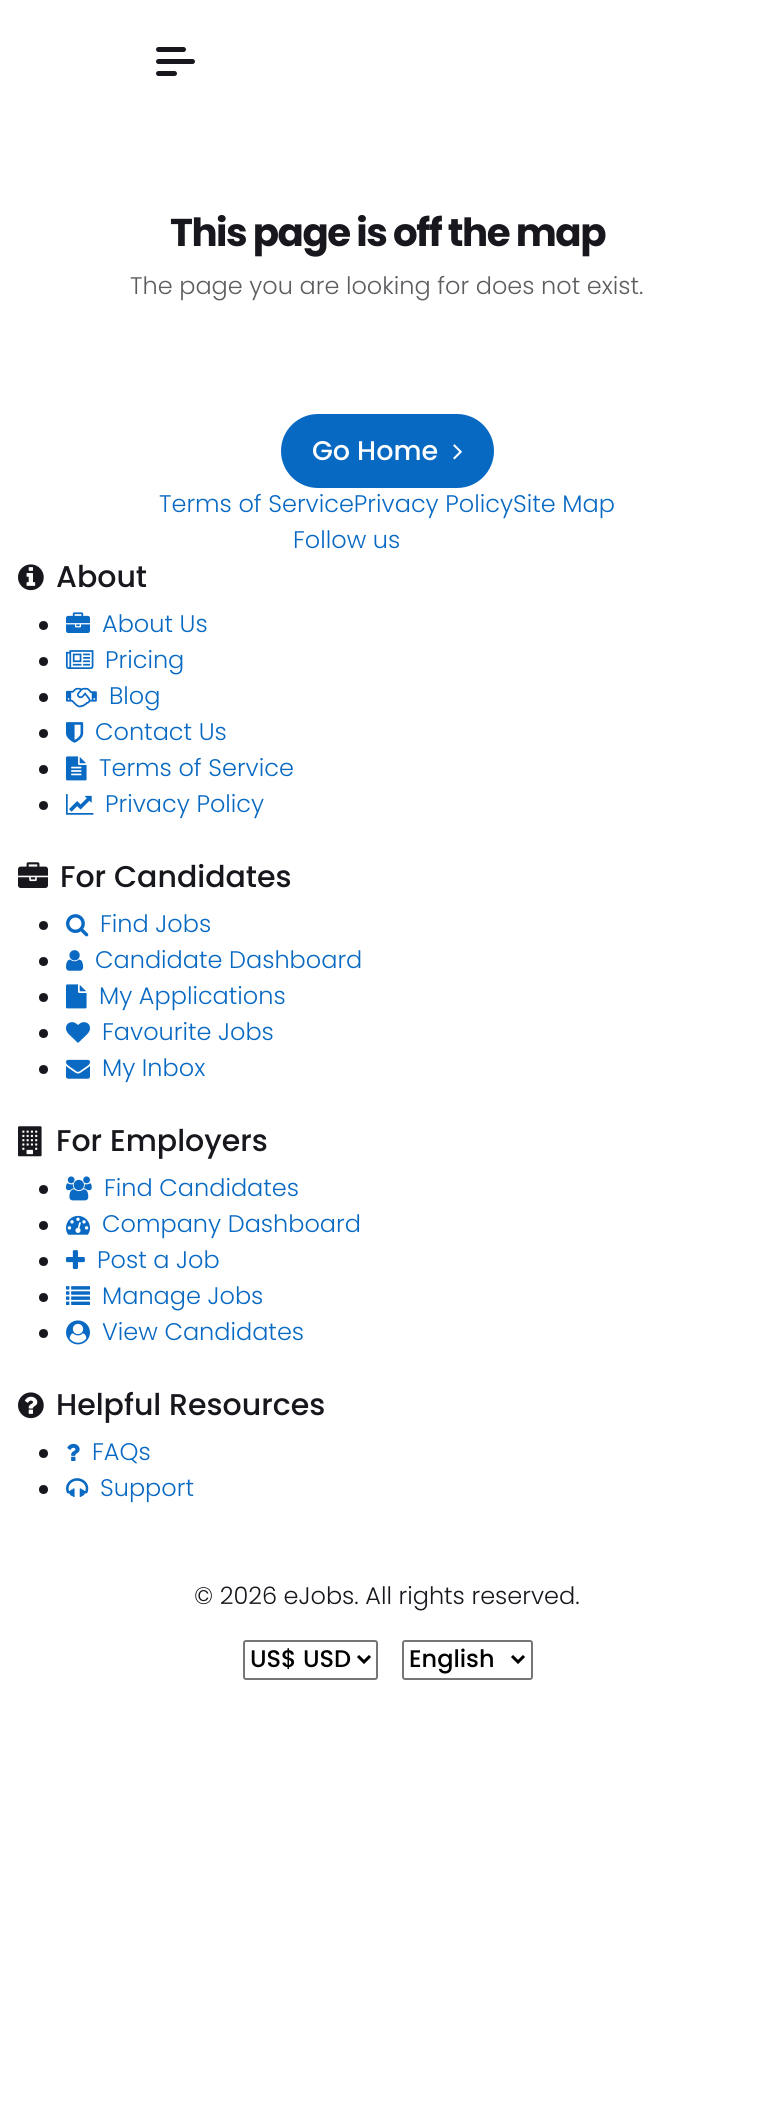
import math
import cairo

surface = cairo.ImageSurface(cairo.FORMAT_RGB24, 773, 2125)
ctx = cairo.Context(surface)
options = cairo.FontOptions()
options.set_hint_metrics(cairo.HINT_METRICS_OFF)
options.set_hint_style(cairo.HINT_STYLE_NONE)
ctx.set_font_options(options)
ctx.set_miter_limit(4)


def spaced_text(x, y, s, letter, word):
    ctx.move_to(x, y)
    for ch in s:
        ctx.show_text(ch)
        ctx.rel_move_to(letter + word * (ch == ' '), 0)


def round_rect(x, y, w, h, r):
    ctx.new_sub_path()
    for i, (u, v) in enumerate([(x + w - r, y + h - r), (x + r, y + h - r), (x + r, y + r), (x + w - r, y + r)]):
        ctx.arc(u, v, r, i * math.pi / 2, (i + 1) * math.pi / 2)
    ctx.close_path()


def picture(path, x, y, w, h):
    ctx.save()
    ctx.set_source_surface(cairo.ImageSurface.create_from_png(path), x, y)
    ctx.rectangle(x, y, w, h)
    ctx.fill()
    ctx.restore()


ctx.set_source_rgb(1, 1, 1)
ctx.paint()
ctx.set_source_rgb(0.09, 0.09, 0.114)
round_rect(156, 47, 30, 5, 2.5)
ctx.fill()
round_rect(156, 59, 39, 5, 2.5)
ctx.fill()
round_rect(156, 71, 21, 5, 2.5)
ctx.fill()
ctx.select_font_face("Poppins", cairo.FONT_SLANT_NORMAL, cairo.FONT_WEIGHT_BOLD)
ctx.set_font_size(38.75)
spaced_text(170, 246, "This page is off the map", -1.5, 0)
ctx.select_font_face("Poppins Light")
ctx.set_font_size(24)
ctx.set_source_rgb(0.365, 0.365, 0.38)
ctx.move_to(130, 294)
ctx.show_text("The page you are looking for does not exist.")
ctx.set_source_rgb(0.035, 0.412, 0.765)
round_rect(281, 414, 213, 74, 37)
ctx.fill()
ctx.select_font_face("Poppins Medium")
ctx.set_font_size(27)
ctx.set_source_rgb(1, 1, 1)
ctx.move_to(312, 460)
ctx.show_text("Go Home")
picture("img1.png", 453, 444, 9, 16)
ctx.select_font_face("Poppins Light")
ctx.set_font_size(24)
ctx.set_source_rgb(0.035, 0.412, 0.765)
ctx.move_to(159, 512)
ctx.show_text("Terms of ServicePrivacy PolicySite Map")
ctx.move_to(293, 548)
ctx.show_text("Follow us")
picture("img2.png", 18, 564, 26, 27)
ctx.select_font_face("Poppins Medium")
ctx.set_font_size(30)
ctx.set_source_rgb(0.09, 0.09, 0.114)
ctx.move_to(56, 587)
ctx.show_text("About")
ctx.new_path()
ctx.arc(43.5, 625.5, 4.5, 0, 2 * math.pi)
ctx.fill()
picture("img3.png", 66, 612, 24, 21)
ctx.select_font_face("Poppins Light")
ctx.set_font_size(24)
ctx.set_source_rgb(0.035, 0.412, 0.765)
ctx.move_to(102, 632)
ctx.show_text("About Us")
ctx.set_source_rgb(0.09, 0.09, 0.114)
ctx.new_path()
ctx.arc(43.5, 661.5, 4.5, 0, 2 * math.pi)
ctx.fill()
picture("img4.png", 66, 650, 28, 19)
ctx.set_source_rgb(0.035, 0.412, 0.765)
ctx.move_to(105, 668)
ctx.show_text("Pricing")
ctx.set_source_rgb(0.09, 0.09, 0.114)
ctx.new_path()
ctx.arc(43.5, 697.5, 4.5, 0, 2 * math.pi)
ctx.fill()
picture("img5.png", 66, 687, 31, 21)
ctx.set_source_rgb(0.035, 0.412, 0.765)
ctx.move_to(109, 704)
ctx.show_text("Blog")
ctx.set_source_rgb(0.09, 0.09, 0.114)
ctx.new_path()
ctx.arc(43.5, 733.5, 4.5, 0, 2 * math.pi)
ctx.fill()
picture("img6.png", 66, 722, 18, 21)
ctx.set_source_rgb(0.035, 0.412, 0.765)
ctx.move_to(95, 740)
ctx.show_text("Contact Us")
ctx.set_source_rgb(0.09, 0.09, 0.114)
ctx.new_path()
ctx.arc(43.5, 769.5, 4.5, 0, 2 * math.pi)
ctx.fill()
picture("img7.png", 66, 756, 21, 25)
ctx.set_source_rgb(0.035, 0.412, 0.765)
ctx.move_to(99, 776)
ctx.show_text("Terms of Service")
ctx.set_source_rgb(0.09, 0.09, 0.114)
ctx.new_path()
ctx.arc(43.5, 805.5, 4.5, 0, 2 * math.pi)
ctx.fill()
picture("img8.png", 66, 794, 28, 21)
ctx.set_source_rgb(0.035, 0.412, 0.765)
ctx.move_to(105, 812)
ctx.show_text("Privacy Policy")
picture("img9.png", 18, 862, 30, 26)
ctx.select_font_face("Poppins Medium")
ctx.set_font_size(30)
ctx.set_source_rgb(0.09, 0.09, 0.114)
ctx.move_to(60, 887)
ctx.show_text("For Candidates")
ctx.new_path()
ctx.arc(43.5, 925.5, 4.5, 0, 2 * math.pi)
ctx.fill()
picture("img10.png", 66, 914, 23, 23)
ctx.select_font_face("Poppins Light")
ctx.set_font_size(24)
ctx.set_source_rgb(0.035, 0.412, 0.765)
ctx.move_to(100, 932)
ctx.show_text("Find Jobs")
ctx.set_source_rgb(0.09, 0.09, 0.114)
ctx.new_path()
ctx.arc(43.5, 961.5, 4.5, 0, 2 * math.pi)
ctx.fill()
picture("img11.png", 66, 950, 18, 21)
ctx.set_source_rgb(0.035, 0.412, 0.765)
ctx.move_to(95, 968)
ctx.show_text("Candidate Dashboard")
ctx.set_source_rgb(0.09, 0.09, 0.114)
ctx.new_path()
ctx.arc(43.5, 997.5, 4.5, 0, 2 * math.pi)
ctx.fill()
picture("img12.png", 66, 984, 21, 25)
ctx.set_source_rgb(0.035, 0.412, 0.765)
ctx.move_to(99, 1004)
ctx.show_text("My Applications")
ctx.set_source_rgb(0.09, 0.09, 0.114)
ctx.new_path()
ctx.arc(43.5, 1033.5, 4.5, 0, 2 * math.pi)
ctx.fill()
picture("img13.png", 66, 1022, 24, 21)
ctx.set_source_rgb(0.035, 0.412, 0.765)
ctx.move_to(102, 1040)
ctx.show_text("Favourite Jobs")
ctx.set_source_rgb(0.09, 0.09, 0.114)
ctx.new_path()
ctx.arc(43.5, 1069.5, 4.5, 0, 2 * math.pi)
ctx.fill()
picture("img14.png", 66, 1059, 24, 20)
ctx.set_source_rgb(0.035, 0.412, 0.765)
ctx.move_to(102, 1076)
ctx.show_text("My Inbox")
picture("img15.png", 18, 1126, 24, 31)
ctx.select_font_face("Poppins Medium")
ctx.set_font_size(30)
ctx.set_source_rgb(0.09, 0.09, 0.114)
ctx.move_to(56, 1151)
ctx.show_text("For Employers")
ctx.new_path()
ctx.arc(43.5, 1189.5, 4.5, 0, 2 * math.pi)
ctx.fill()
picture("img16.png", 66, 1176, 26, 25)
ctx.select_font_face("Poppins Light")
ctx.set_font_size(24)
ctx.set_source_rgb(0.035, 0.412, 0.765)
ctx.move_to(104, 1196)
ctx.show_text("Find Candidates")
ctx.set_source_rgb(0.09, 0.09, 0.114)
ctx.new_path()
ctx.arc(43.5, 1225.5, 4.5, 0, 2 * math.pi)
ctx.fill()
picture("img17.png", 66, 1215, 24, 20)
ctx.set_source_rgb(0.035, 0.412, 0.765)
ctx.move_to(102, 1232)
ctx.show_text("Company Dashboard")
ctx.set_source_rgb(0.09, 0.09, 0.114)
ctx.new_path()
ctx.arc(43.5, 1261.5, 4.5, 0, 2 * math.pi)
ctx.fill()
picture("img18.png", 66, 1250, 19, 19)
ctx.set_source_rgb(0.035, 0.412, 0.765)
ctx.move_to(97, 1268)
ctx.show_text("Post a Job")
ctx.set_source_rgb(0.09, 0.09, 0.114)
ctx.new_path()
ctx.arc(43.5, 1297.5, 4.5, 0, 2 * math.pi)
ctx.fill()
picture("img19.png", 66, 1286, 24, 19)
ctx.set_source_rgb(0.035, 0.412, 0.765)
ctx.move_to(102, 1304)
ctx.show_text("Manage Jobs")
ctx.set_source_rgb(0.09, 0.09, 0.114)
ctx.new_path()
ctx.arc(43.5, 1333.5, 4.5, 0, 2 * math.pi)
ctx.fill()
picture("img20.png", 66, 1320, 24, 25)
ctx.set_source_rgb(0.035, 0.412, 0.765)
ctx.move_to(102, 1340)
ctx.show_text("View Candidates")
picture("img21.png", 18, 1392, 26, 27)
ctx.select_font_face("Poppins Medium")
ctx.set_font_size(30)
ctx.set_source_rgb(0.09, 0.09, 0.114)
ctx.move_to(56, 1415)
ctx.show_text("Helpful Resources")
ctx.new_path()
ctx.arc(43.5, 1453.5, 4.5, 0, 2 * math.pi)
ctx.fill()
picture("img22.png", 67, 1443, 13, 18)
ctx.select_font_face("Poppins Light")
ctx.set_font_size(24)
ctx.set_source_rgb(0.035, 0.412, 0.765)
ctx.move_to(92, 1460)
ctx.show_text("FAQs")
ctx.set_source_rgb(0.09, 0.09, 0.114)
ctx.new_path()
ctx.arc(43.5, 1489.5, 4.5, 0, 2 * math.pi)
ctx.fill()
picture("img23.png", 66, 1478, 23, 19)
ctx.set_source_rgb(0.035, 0.412, 0.765)
ctx.move_to(100, 1496)
ctx.show_text("Support")
ctx.set_source_rgb(0.09, 0.09, 0.114)
ctx.move_to(194, 1604)
ctx.show_text("© 2026 eJobs. All rights reserved.")
round_rect(244, 1641, 133, 38, 2)
ctx.set_source_rgb(0.463, 0.463, 0.463)
ctx.stroke()
ctx.new_path()
ctx.move_to(358, 1656)
ctx.line_to(364, 1662)
ctx.line_to(370, 1656)
ctx.set_source_rgb(0, 0, 0)
ctx.set_line_width(3)
ctx.stroke()
ctx.select_font_face("Poppins Medium")
ctx.move_to(250, 1667)
ctx.show_text("US$ USD")
round_rect(403, 1641, 129, 38, 2)
ctx.set_source_rgb(0.463, 0.463, 0.463)
ctx.set_line_width(2)
ctx.stroke()
ctx.new_path()
ctx.move_to(512, 1656)
ctx.line_to(518, 1662)
ctx.line_to(524, 1656)
ctx.set_source_rgb(0, 0, 0)
ctx.set_line_width(3)
ctx.stroke()
ctx.move_to(409, 1667)
ctx.show_text("English")
surface.write_to_png("page.png")
